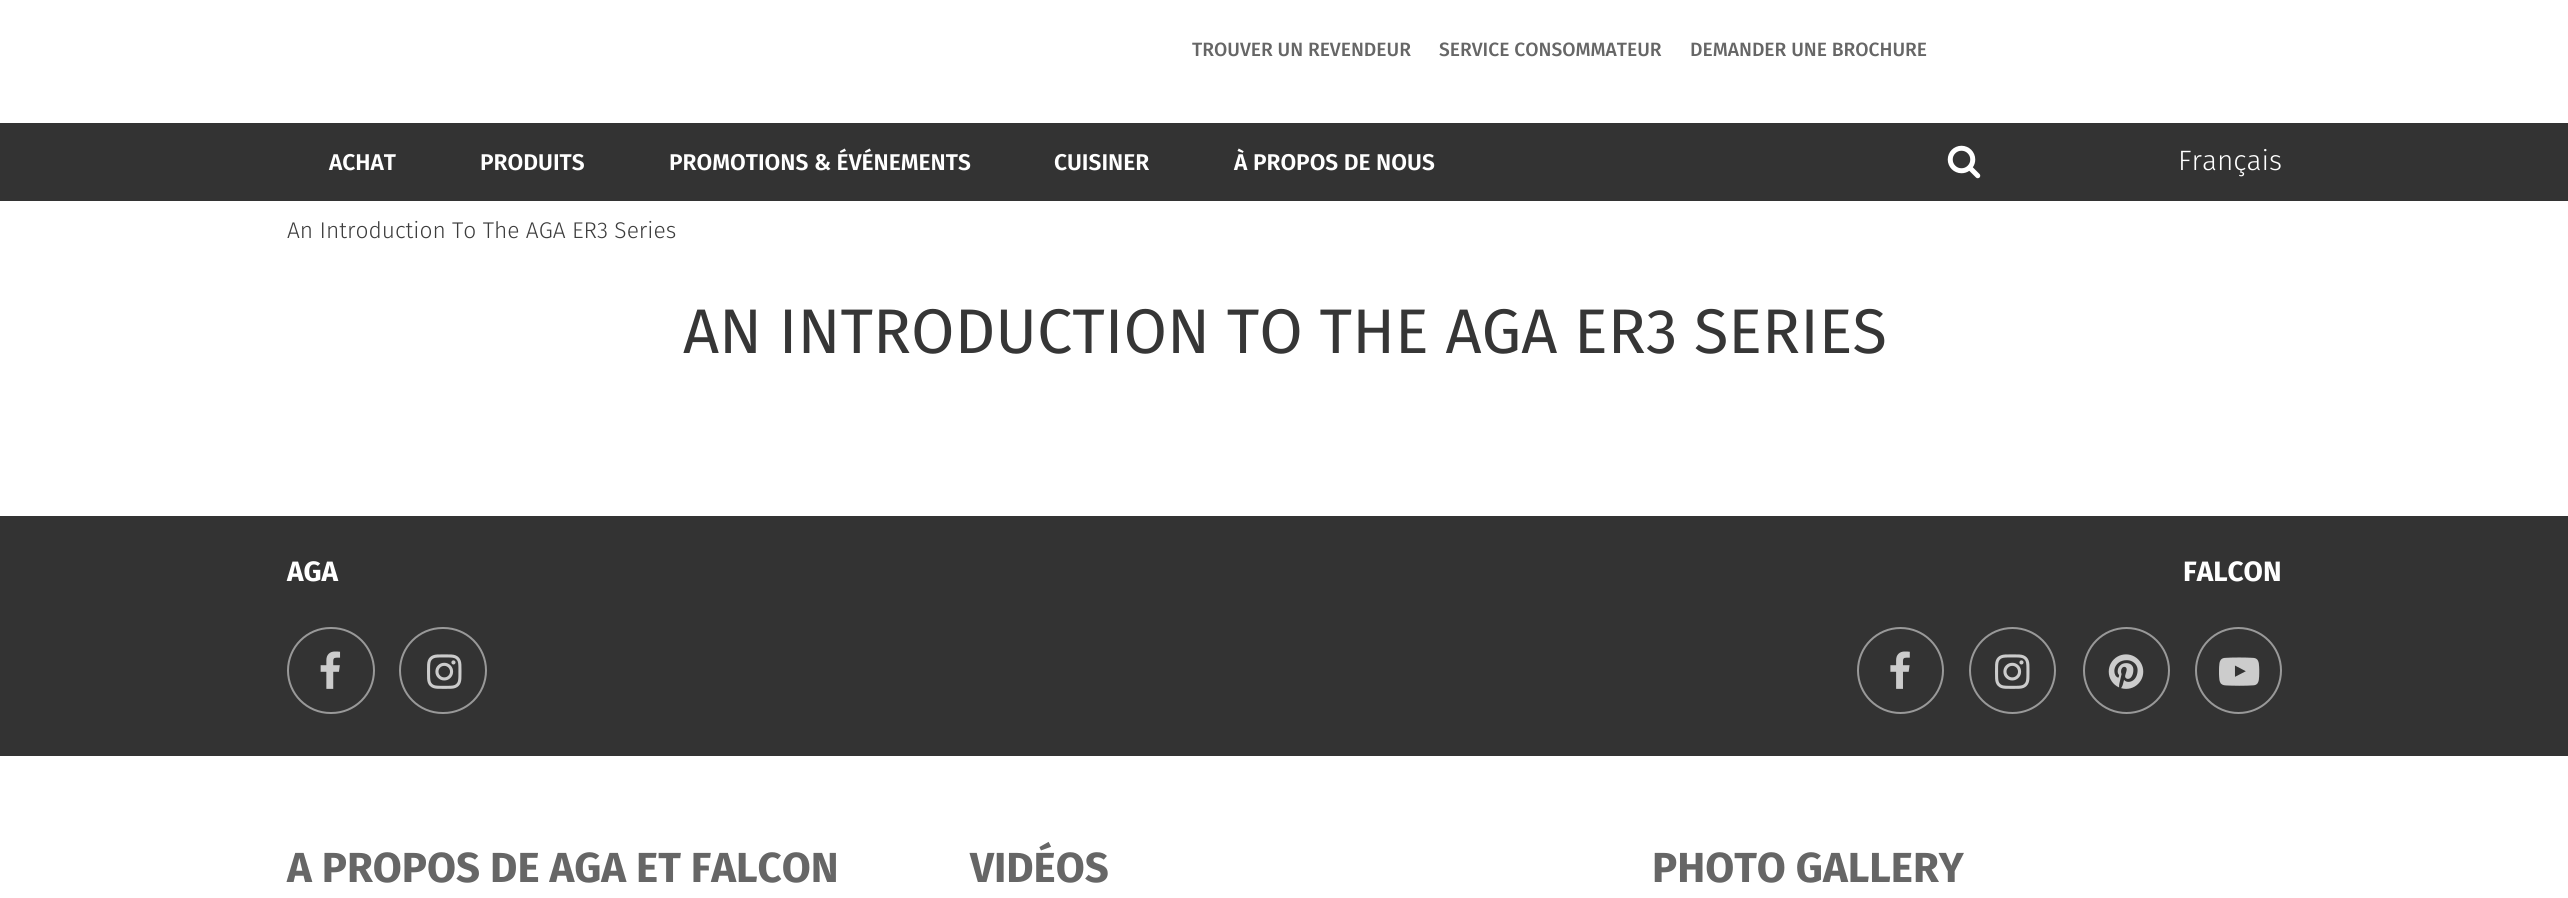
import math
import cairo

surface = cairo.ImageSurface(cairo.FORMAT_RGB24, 2568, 898)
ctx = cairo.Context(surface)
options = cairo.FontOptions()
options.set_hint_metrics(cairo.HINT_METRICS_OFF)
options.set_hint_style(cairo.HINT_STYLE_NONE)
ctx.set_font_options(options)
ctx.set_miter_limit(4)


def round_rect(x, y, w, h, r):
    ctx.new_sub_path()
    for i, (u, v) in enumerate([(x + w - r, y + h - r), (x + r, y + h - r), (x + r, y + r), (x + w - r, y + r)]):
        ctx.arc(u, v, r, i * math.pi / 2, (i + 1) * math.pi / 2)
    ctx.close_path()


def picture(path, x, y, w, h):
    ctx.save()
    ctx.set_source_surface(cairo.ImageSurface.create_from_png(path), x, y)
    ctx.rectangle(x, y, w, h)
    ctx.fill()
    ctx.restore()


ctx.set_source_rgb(1, 1, 1)
ctx.paint()
ctx.select_font_face("Fira Sans Medium")
ctx.set_font_size(19.25)
ctx.set_source_rgb(0.4, 0.4, 0.4)
ctx.move_to(1192, 56)
ctx.show_text("TROUVER UN REVENDEUR")
ctx.move_to(1439, 56)
ctx.show_text("SERVICE CONSOMMATEUR")
ctx.move_to(1690, 56)
ctx.show_text("DEMANDER UNE BROCHURE")
ctx.set_source_rgb(0.2, 0.2, 0.2)
ctx.rectangle(0, 123, 2568, 78)
ctx.fill()
ctx.select_font_face("Fira Sans SemiBold")
ctx.set_font_size(22.75)
ctx.set_source_rgb(1, 1, 1)
ctx.move_to(329, 170)
ctx.show_text("ACHAT")
ctx.move_to(480, 170)
ctx.show_text("PRODUITS")
ctx.move_to(669, 170)
ctx.show_text("PROMOTIONS & ÉVÉNEMENTS")
ctx.move_to(1054, 170)
ctx.show_text("CUISINER")
ctx.move_to(1234, 170)
ctx.show_text("À PROPOS DE NOUS")
picture("img1.png", 1947, 145, 34, 34)
ctx.select_font_face("Fira Sans Light")
ctx.set_font_size(28)
ctx.move_to(2178, 170)
ctx.show_text("Français")
ctx.set_font_size(22.75)
ctx.set_source_rgb(0.235, 0.235, 0.235)
ctx.move_to(287, 238)
ctx.show_text("An Introduction To The AGA ER3 Series")
ctx.select_font_face("Fira Sans")
ctx.set_font_size(63)
ctx.set_source_rgb(0.212, 0.212, 0.212)
ctx.move_to(683, 353)
ctx.show_text("AN INTRODUCTION TO THE AGA ER3 SERIES")
ctx.set_source_rgb(0.2, 0.2, 0.2)
ctx.rectangle(0, 516, 2568, 240)
ctx.fill()
ctx.select_font_face("Fira Sans", cairo.FONT_SLANT_NORMAL, cairo.FONT_WEIGHT_BOLD)
ctx.set_font_size(28)
ctx.set_source_rgb(1, 1, 1)
ctx.move_to(287, 581)
ctx.show_text("AGA")
round_rect(288, 628, 86, 85, 42.5)
ctx.set_source_rgb(0.6, 0.6, 0.6)
ctx.stroke()
picture("img2.png", 320, 651, 21, 38)
round_rect(400, 628, 86, 85, 42.5)
ctx.stroke()
picture("img3.png", 427, 654, 35, 35)
ctx.set_source_rgb(1, 1, 1)
ctx.move_to(2183, 581)
ctx.show_text("FALCON")
ctx.new_path()
ctx.arc(1900.5, 670.5, 42.5, 0, 2 * math.pi)
ctx.set_source_rgb(0.6, 0.6, 0.6)
ctx.stroke()
picture("img4.png", 1890, 651, 20, 38)
ctx.arc(2012.5, 670.5, 42.5, 0, 2 * math.pi)
ctx.stroke()
picture("img5.png", 1995, 654, 35, 35)
ctx.arc(2126.5, 670.5, 42.5, 0, 2 * math.pi)
ctx.stroke()
picture("img6.png", 2108, 654, 36, 35)
ctx.arc(2238.5, 670.5, 42.5, 0, 2 * math.pi)
ctx.stroke()
picture("img7.png", 2219, 657, 41, 29)
ctx.set_font_size(42)
ctx.set_source_rgb(0.4, 0.4, 0.4)
ctx.move_to(287, 882)
ctx.show_text("A PROPOS DE AGA ET FALCON")
ctx.move_to(970, 882)
ctx.show_text("VIDÉOS")
ctx.move_to(1652, 882)
ctx.show_text("PHOTO GALLERY")
surface.write_to_png("page.png")
